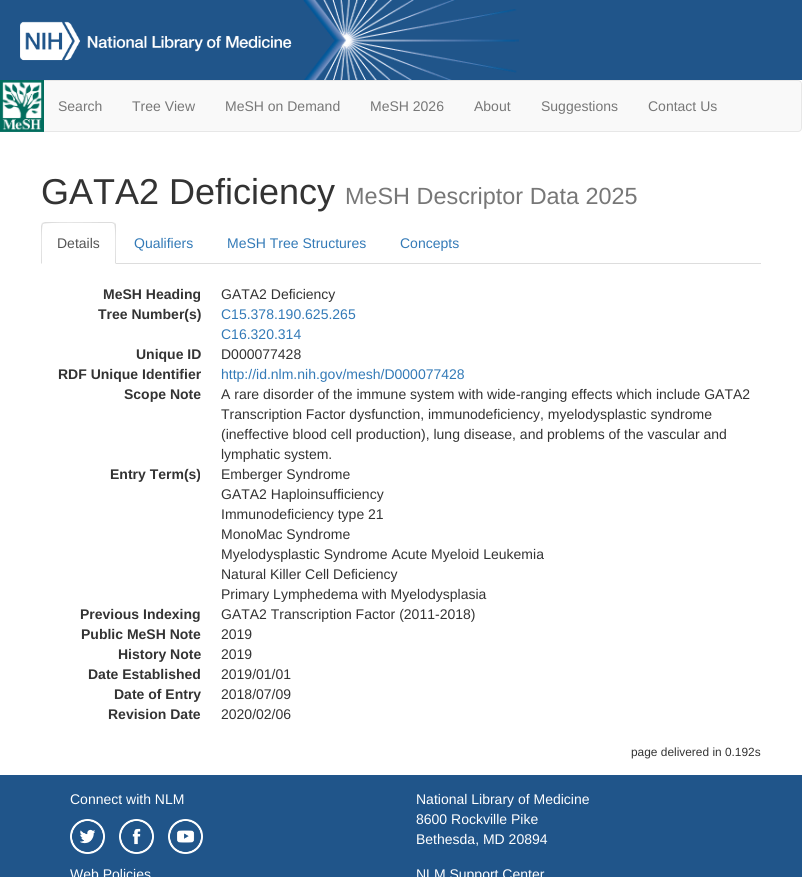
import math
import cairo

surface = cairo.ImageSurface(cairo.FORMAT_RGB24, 802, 877)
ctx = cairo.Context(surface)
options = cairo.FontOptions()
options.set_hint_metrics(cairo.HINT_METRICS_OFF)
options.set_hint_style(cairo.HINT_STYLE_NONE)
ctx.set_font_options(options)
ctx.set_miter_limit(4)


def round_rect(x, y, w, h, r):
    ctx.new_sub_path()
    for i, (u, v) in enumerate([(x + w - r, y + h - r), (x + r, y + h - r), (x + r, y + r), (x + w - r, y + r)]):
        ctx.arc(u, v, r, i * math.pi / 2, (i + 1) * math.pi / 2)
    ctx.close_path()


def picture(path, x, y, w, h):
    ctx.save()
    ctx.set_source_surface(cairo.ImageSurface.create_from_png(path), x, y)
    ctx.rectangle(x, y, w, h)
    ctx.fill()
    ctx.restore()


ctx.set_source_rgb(1, 1, 1)
ctx.paint()
ctx.set_source_rgb(0.125, 0.333, 0.541)
ctx.rectangle(0, 0, 802, 80)
ctx.fill()
picture("img1.png", 303, 0, 216, 80)
picture("img2.png", 20, 21, 272, 40)
ctx.set_source_rgb(0.973, 0.973, 0.973)
round_rect(0.5, 80.5, 801, 51, 3.5)
ctx.fill_preserve()
ctx.set_source_rgb(0.906, 0.906, 0.906)
ctx.set_line_width(1)
ctx.stroke()
picture("img3.png", 0, 80, 44, 52)
ctx.select_font_face("Liberation Sans")
ctx.set_font_size(14)
ctx.set_source_rgb(0.467, 0.467, 0.467)
ctx.move_to(58, 111)
ctx.show_text("Search")
ctx.move_to(132, 111)
ctx.show_text("Tree View")
ctx.move_to(225, 111)
ctx.show_text("MeSH on Demand")
ctx.move_to(370, 111)
ctx.show_text("MeSH 2026")
ctx.move_to(474, 111)
ctx.show_text("About")
ctx.move_to(541, 111)
ctx.show_text("Suggestions")
ctx.move_to(648, 111)
ctx.show_text("Contact Us")
ctx.set_font_size(36)
ctx.set_source_rgb(0.2, 0.2, 0.2)
ctx.move_to(41, 204)
ctx.show_text("GATA2 Deficiency")
ctx.set_font_size(23.4)
ctx.set_source_rgb(0.467, 0.467, 0.467)
ctx.move_to(345, 204)
ctx.show_text("MeSH Descriptor Data 2025")
ctx.set_source_rgb(0.867, 0.867, 0.867)
ctx.rectangle(116, 263, 645, 1)
ctx.fill()
ctx.new_path()
ctx.move_to(45, 222)
ctx.line_to(42, 223)
ctx.line_to(43, 224)
ctx.curve_to(45, 222, 94, 223, 101, 223)
ctx.line_to(112, 223)
ctx.line_to(114, 224)
ctx.line_to(115, 223)
ctx.line_to(112, 222)
ctx.close_path()
ctx.fill()
ctx.new_path()
ctx.move_to(116, 264)
ctx.line_to(116, 226)
ctx.curve_to(116, 225, 116, 224, 115, 223)
ctx.line_to(114, 224)
ctx.curve_to(116, 226, 115, 258, 115, 263)
ctx.close_path()
ctx.fill()
ctx.new_path()
ctx.move_to(41, 264)
ctx.line_to(42, 263)
ctx.curve_to(42, 258, 41, 226, 43, 224)
ctx.line_to(42, 223)
ctx.line_to(41, 226)
ctx.close_path()
ctx.fill()
ctx.set_font_size(14)
ctx.set_source_rgb(0.333, 0.333, 0.333)
ctx.move_to(57, 248)
ctx.show_text("Details")
ctx.set_source_rgb(0.2, 0.478, 0.718)
ctx.move_to(134, 248)
ctx.show_text("Qualifiers")
ctx.move_to(227, 248)
ctx.show_text("MeSH Tree Structures")
ctx.move_to(400, 248)
ctx.show_text("Concepts")
ctx.select_font_face("Liberation Sans", cairo.FONT_SLANT_NORMAL, cairo.FONT_WEIGHT_BOLD)
ctx.set_source_rgb(0.2, 0.2, 0.2)
ctx.move_to(103, 299)
ctx.show_text("MeSH Heading")
ctx.select_font_face("Liberation Sans")
ctx.move_to(221, 299)
ctx.show_text("GATA2 Deficiency")
ctx.select_font_face("Liberation Sans", cairo.FONT_SLANT_NORMAL, cairo.FONT_WEIGHT_BOLD)
ctx.move_to(98, 319)
ctx.show_text("Tree Number(s)")
ctx.select_font_face("Liberation Sans")
ctx.set_source_rgb(0.2, 0.478, 0.718)
ctx.move_to(221, 319)
ctx.show_text("C15.378.190.625.265")
ctx.move_to(221, 339)
ctx.show_text("C16.320.314")
ctx.select_font_face("Liberation Sans", cairo.FONT_SLANT_NORMAL, cairo.FONT_WEIGHT_BOLD)
ctx.set_source_rgb(0.2, 0.2, 0.2)
ctx.move_to(136, 359)
ctx.show_text("Unique ID")
ctx.select_font_face("Liberation Sans")
ctx.move_to(221, 359)
ctx.show_text("D000077428")
ctx.select_font_face("Liberation Sans", cairo.FONT_SLANT_NORMAL, cairo.FONT_WEIGHT_BOLD)
ctx.move_to(58, 379)
ctx.show_text("RDF Unique Identifier")
ctx.select_font_face("Liberation Sans")
ctx.set_source_rgb(0.2, 0.478, 0.718)
ctx.move_to(221, 379)
ctx.show_text("http://id.nlm.nih.gov/mesh/D000077428")
ctx.select_font_face("Liberation Sans", cairo.FONT_SLANT_NORMAL, cairo.FONT_WEIGHT_BOLD)
ctx.set_source_rgb(0.2, 0.2, 0.2)
ctx.move_to(124, 399)
ctx.show_text("Scope Note")
ctx.select_font_face("Liberation Sans")
ctx.move_to(221, 399)
ctx.show_text("A rare disorder of the immune system with wide-ranging effects which include GATA2")
ctx.move_to(221, 419)
ctx.show_text("Transcription Factor dysfunction, immunodeficiency, myelodysplastic syndrome")
ctx.move_to(221, 439)
ctx.show_text("(ineffective blood cell production), lung disease, and problems of the vascular and")
ctx.move_to(221, 459)
ctx.show_text("lymphatic system.")
ctx.select_font_face("Liberation Sans", cairo.FONT_SLANT_NORMAL, cairo.FONT_WEIGHT_BOLD)
ctx.move_to(110, 479)
ctx.show_text("Entry Term(s)")
ctx.select_font_face("Liberation Sans")
ctx.move_to(221, 479)
ctx.show_text("Emberger Syndrome")
ctx.move_to(221, 499)
ctx.show_text("GATA2 Haploinsufficiency")
ctx.move_to(221, 519)
ctx.show_text("Immunodeficiency type 21")
ctx.move_to(221, 539)
ctx.show_text("MonoMac Syndrome")
ctx.move_to(221, 559)
ctx.show_text("Myelodysplastic Syndrome Acute Myeloid Leukemia")
ctx.move_to(221, 579)
ctx.show_text("Natural Killer Cell Deficiency")
ctx.move_to(221, 599)
ctx.show_text("Primary Lymphedema with Myelodysplasia")
ctx.select_font_face("Liberation Sans", cairo.FONT_SLANT_NORMAL, cairo.FONT_WEIGHT_BOLD)
ctx.move_to(80, 619)
ctx.show_text("Previous Indexing")
ctx.select_font_face("Liberation Sans")
ctx.move_to(221, 619)
ctx.show_text("GATA2 Transcription Factor (2011-2018)")
ctx.select_font_face("Liberation Sans", cairo.FONT_SLANT_NORMAL, cairo.FONT_WEIGHT_BOLD)
ctx.move_to(81, 639)
ctx.show_text("Public MeSH Note")
ctx.select_font_face("Liberation Sans")
ctx.move_to(221, 639)
ctx.show_text("2019")
ctx.select_font_face("Liberation Sans", cairo.FONT_SLANT_NORMAL, cairo.FONT_WEIGHT_BOLD)
ctx.move_to(118, 659)
ctx.show_text("History Note")
ctx.select_font_face("Liberation Sans")
ctx.move_to(221, 659)
ctx.show_text("2019")
ctx.select_font_face("Liberation Sans", cairo.FONT_SLANT_NORMAL, cairo.FONT_WEIGHT_BOLD)
ctx.move_to(88, 679)
ctx.show_text("Date Established")
ctx.select_font_face("Liberation Sans")
ctx.move_to(221, 679)
ctx.show_text("2019/01/01")
ctx.select_font_face("Liberation Sans", cairo.FONT_SLANT_NORMAL, cairo.FONT_WEIGHT_BOLD)
ctx.move_to(114, 699)
ctx.show_text("Date of Entry")
ctx.select_font_face("Liberation Sans")
ctx.move_to(221, 699)
ctx.show_text("2018/07/09")
ctx.select_font_face("Liberation Sans", cairo.FONT_SLANT_NORMAL, cairo.FONT_WEIGHT_BOLD)
ctx.move_to(108, 719)
ctx.show_text("Revision Date")
ctx.select_font_face("Liberation Sans")
ctx.move_to(221, 719)
ctx.show_text("2020/02/06")
ctx.set_font_size(11.9)
ctx.move_to(631, 756)
ctx.show_text("page delivered in 0.192s")
ctx.set_source_rgb(0.125, 0.333, 0.541)
ctx.rectangle(0, 775, 802, 102)
ctx.fill()
ctx.set_font_size(14)
ctx.set_source_rgb(1, 1, 1)
ctx.move_to(70, 804)
ctx.show_text("Connect with NLM")
picture("img4.png", 70, 819, 35, 35)
picture("img5.png", 119, 819, 35, 35)
picture("img6.png", 168, 819, 35, 35)
ctx.move_to(416, 804)
ctx.show_text("National Library of Medicine")
ctx.move_to(416, 824)
ctx.show_text("8600 Rockville Pike")
ctx.move_to(416, 844)
ctx.show_text("Bethesda, MD 20894")
ctx.move_to(70, 879)
ctx.show_text("Web Policies")
ctx.move_to(416, 879)
ctx.show_text("NLM Support Center")
surface.write_to_png("page.png")
